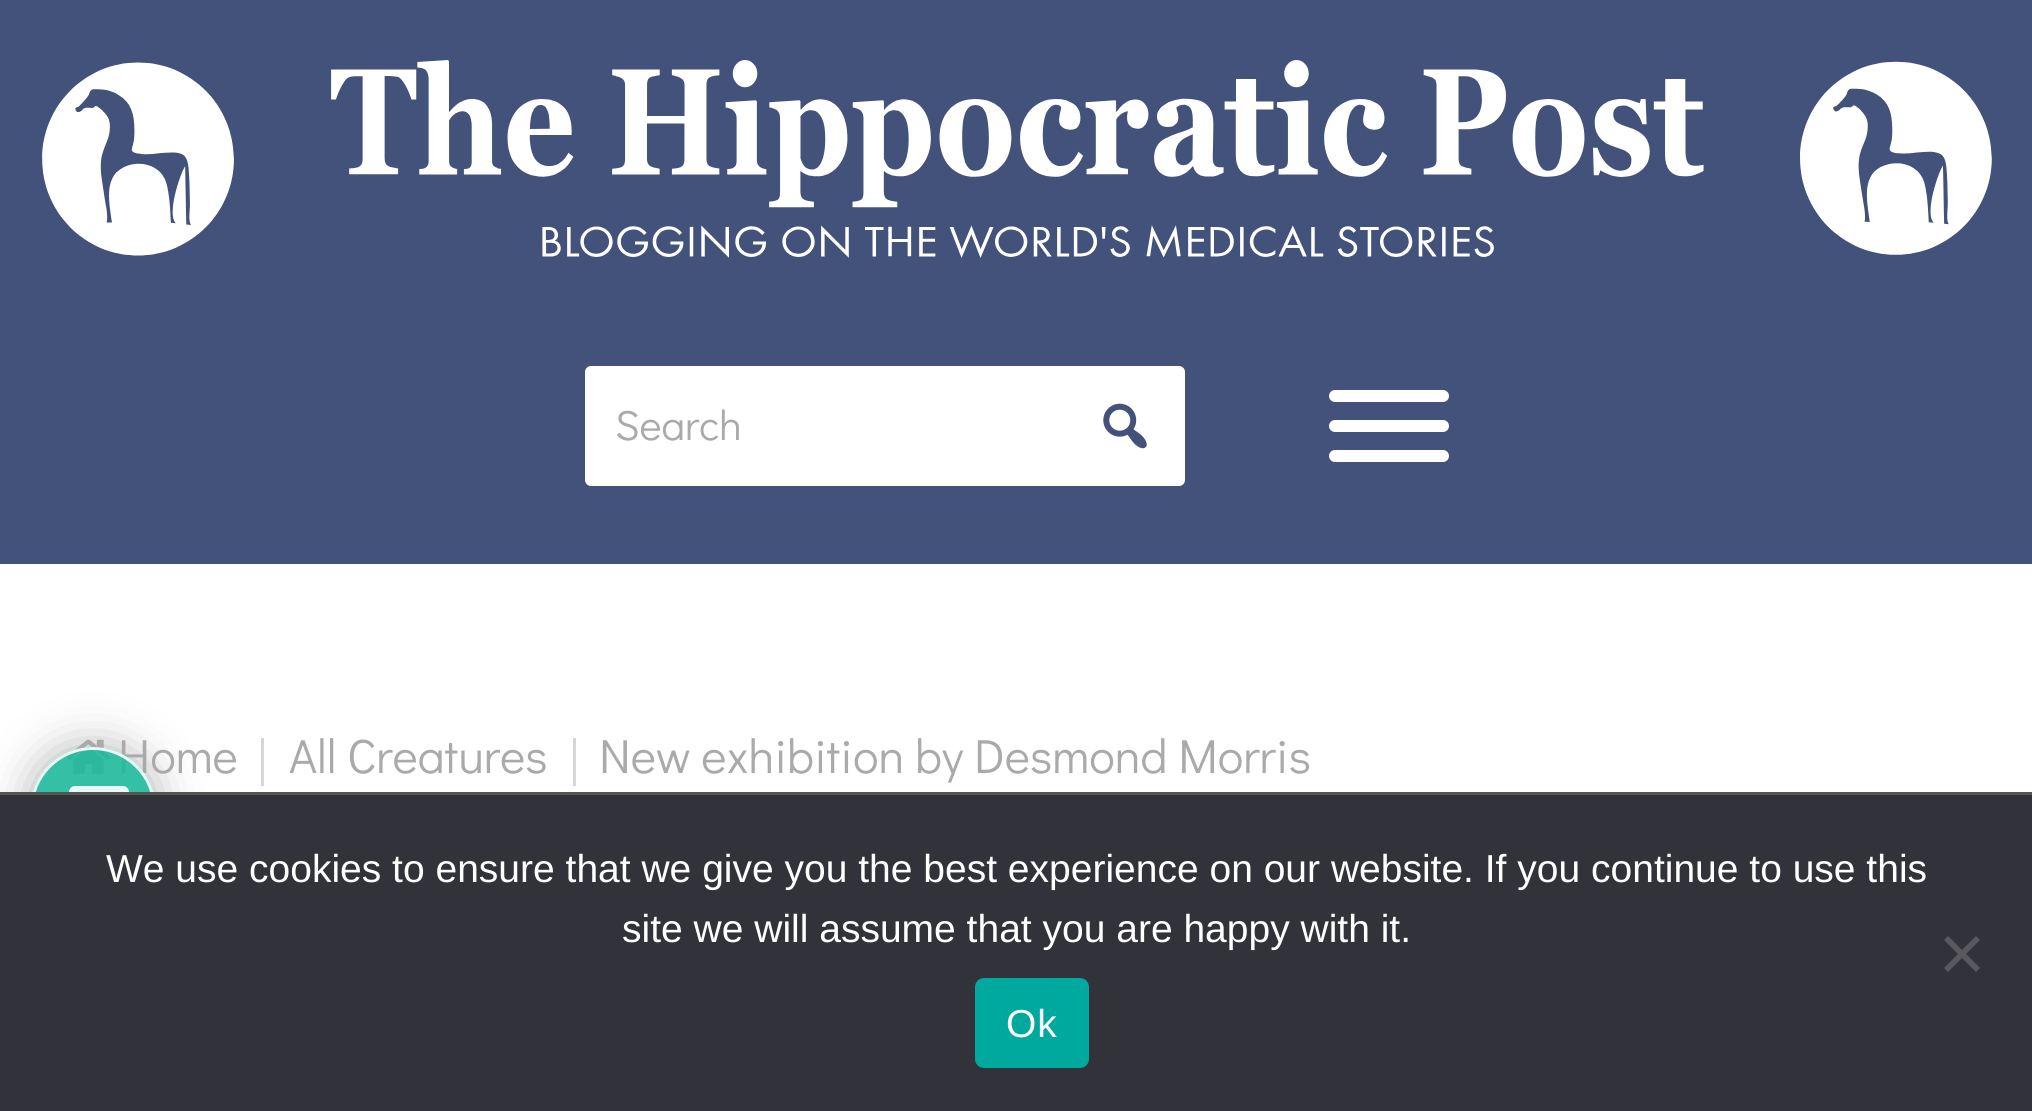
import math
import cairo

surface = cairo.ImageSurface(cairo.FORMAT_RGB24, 2032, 1111)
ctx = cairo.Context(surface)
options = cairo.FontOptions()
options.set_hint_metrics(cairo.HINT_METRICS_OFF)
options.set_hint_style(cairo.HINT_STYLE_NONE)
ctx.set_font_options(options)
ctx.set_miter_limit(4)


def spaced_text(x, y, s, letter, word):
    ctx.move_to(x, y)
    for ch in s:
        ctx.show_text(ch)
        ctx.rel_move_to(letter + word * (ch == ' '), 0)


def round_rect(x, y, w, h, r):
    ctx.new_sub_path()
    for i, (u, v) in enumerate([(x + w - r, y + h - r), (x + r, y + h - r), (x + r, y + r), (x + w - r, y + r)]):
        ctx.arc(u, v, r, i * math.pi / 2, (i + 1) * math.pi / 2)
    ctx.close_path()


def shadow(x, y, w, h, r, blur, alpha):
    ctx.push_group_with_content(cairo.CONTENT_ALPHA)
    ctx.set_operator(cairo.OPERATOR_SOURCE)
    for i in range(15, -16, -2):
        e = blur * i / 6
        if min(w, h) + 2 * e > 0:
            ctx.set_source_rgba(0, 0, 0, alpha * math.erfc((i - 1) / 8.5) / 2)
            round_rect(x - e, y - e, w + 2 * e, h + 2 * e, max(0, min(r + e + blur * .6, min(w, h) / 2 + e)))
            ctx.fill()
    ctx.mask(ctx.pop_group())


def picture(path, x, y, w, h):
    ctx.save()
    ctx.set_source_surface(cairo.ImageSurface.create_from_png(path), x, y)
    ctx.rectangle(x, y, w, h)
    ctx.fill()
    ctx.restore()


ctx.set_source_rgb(1, 1, 1)
ctx.paint()
ctx.set_source_rgb(0.263, 0.322, 0.482)
ctx.rectangle(0, 0, 2032, 564)
ctx.fill()
picture("img1.png", 42, 60, 1950, 198)
ctx.set_source_rgb(1, 1, 1)
round_rect(585, 366, 600, 120, 6)
ctx.fill()
ctx.select_font_face("Didact Gothic")
ctx.set_font_size(42)
ctx.set_source_rgb(0.667, 0.667, 0.667)
ctx.move_to(615, 440)
ctx.show_text("Search")
picture("img2.png", 1103, 403, 44, 46)
ctx.set_source_rgb(1, 1, 1)
round_rect(1329, 390, 120, 12, 6)
ctx.fill()
round_rect(1329, 420, 120, 12, 6)
ctx.fill()
round_rect(1329, 450, 120, 12, 6)
ctx.fill()
picture("img3.png", 66, 739, 44, 35)
ctx.set_font_size(48)
ctx.set_source_rgb(0.667, 0.667, 0.667)
ctx.move_to(118, 773)
ctx.show_text("Home")
ctx.set_source_rgb(0.839, 0.839, 0.839)
ctx.rectangle(261, 738, 3, 48)
ctx.fill()
ctx.set_source_rgb(0.667, 0.667, 0.667)
ctx.move_to(289, 773)
ctx.show_text("All Creatures")
ctx.set_source_rgb(0.839, 0.839, 0.839)
ctx.rectangle(573, 738, 3, 48)
ctx.fill()
ctx.set_source_rgb(0.667, 0.667, 0.667)
ctx.move_to(599, 773)
ctx.show_text("New exhibition by Desmond Morris")
ctx.save()
ctx.set_fill_rule(cairo.FILL_RULE_EVEN_ODD)
ctx.new_path()
ctx.move_to(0, 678)
ctx.line_to(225, 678)
ctx.line_to(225, 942)
ctx.line_to(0, 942)
ctx.close_path()
ctx.move_to(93, 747)
ctx.curve_to(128, 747, 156, 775, 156, 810)
ctx.curve_to(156, 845, 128, 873, 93, 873)
ctx.curve_to(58, 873, 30, 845, 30, 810)
ctx.curve_to(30, 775, 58, 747, 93, 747)
ctx.close_path()
ctx.clip()
ctx.set_source_rgb(0.667, 0.667, 0.667)
shadow(30, 747, 126, 126, 63, 22.5, 0.9)
ctx.restore()
ctx.set_source_rgba(0.114, 0.725, 0.604, 0.9)
ctx.arc(93, 810, 63, 0, 2 * math.pi)
ctx.fill()
ctx.arc(93, 810, 61.5, 0, 2 * math.pi)
ctx.set_source_rgba(1, 1, 1, 0.9)
ctx.set_line_width(3)
ctx.stroke()
picture("img4.png", 69, 786, 60, 6)
ctx.set_source_rgb(0.196, 0.196, 0.227)
ctx.rectangle(0, 795, 2032, 316)
ctx.fill()
ctx.set_source_rgb(0.333, 0.333, 0.333)
ctx.rectangle(0, 792, 2032, 3)
ctx.fill()
ctx.select_font_face("Liberation Sans")
ctx.set_font_size(39)
ctx.set_source_rgb(1, 1, 1)
ctx.move_to(106, 882)
ctx.show_text("We use cookies to ensure that we give you the best experience on our website. If you continue to use this")
ctx.move_to(622, 942)
ctx.show_text("site we will assume that you are happy with it.")
ctx.set_source_rgb(0.349, 0.349, 0.365)
ctx.new_path()
ctx.move_to(1976, 936)
ctx.line_to(1980, 940)
ctx.line_to(1948, 972)
ctx.line_to(1944, 968)
ctx.close_path()
ctx.fill()
ctx.new_path()
ctx.move_to(1944, 940)
ctx.line_to(1948, 936)
ctx.line_to(1980, 968)
ctx.line_to(1976, 972)
ctx.close_path()
ctx.fill()
ctx.set_source_rgb(0, 0.663, 0.616)
round_rect(975, 978, 114, 90, 9)
ctx.fill()
ctx.set_source_rgb(1, 1, 1)
spaced_text(1006, 1037, "Ok", 1, 0)
surface.write_to_png("page.png")
